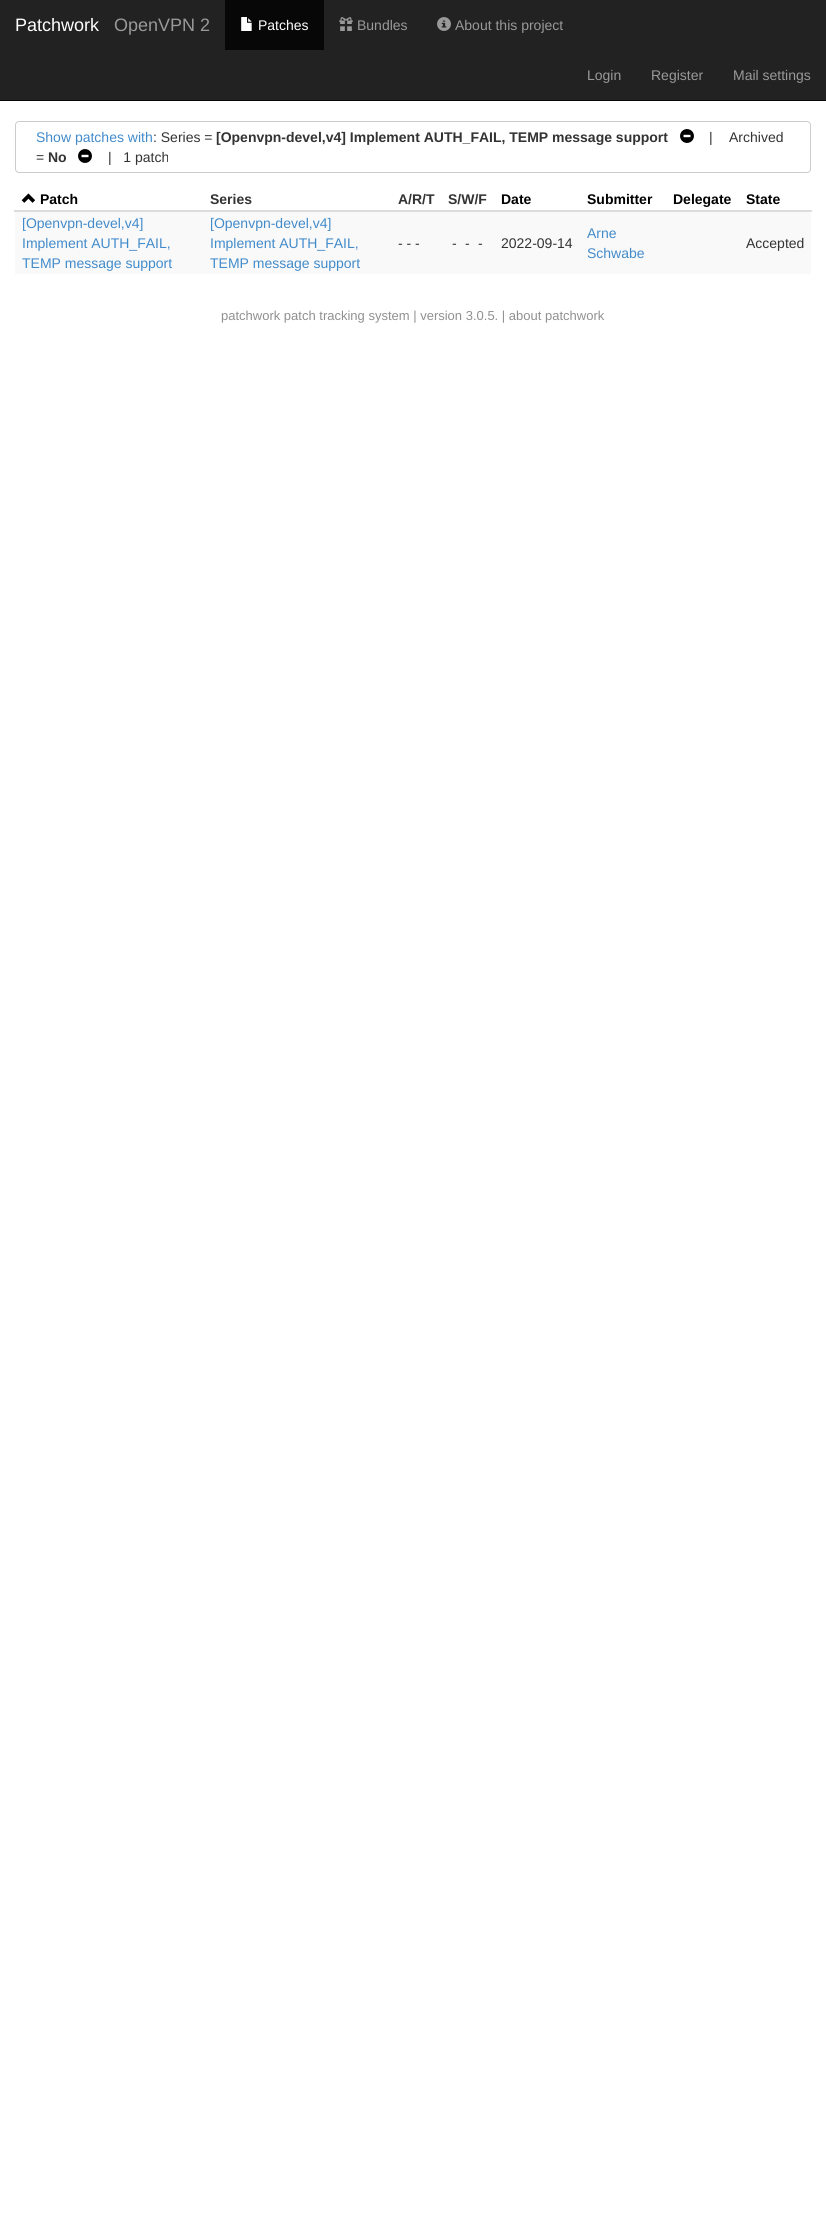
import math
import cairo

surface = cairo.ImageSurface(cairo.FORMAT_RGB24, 826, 2221)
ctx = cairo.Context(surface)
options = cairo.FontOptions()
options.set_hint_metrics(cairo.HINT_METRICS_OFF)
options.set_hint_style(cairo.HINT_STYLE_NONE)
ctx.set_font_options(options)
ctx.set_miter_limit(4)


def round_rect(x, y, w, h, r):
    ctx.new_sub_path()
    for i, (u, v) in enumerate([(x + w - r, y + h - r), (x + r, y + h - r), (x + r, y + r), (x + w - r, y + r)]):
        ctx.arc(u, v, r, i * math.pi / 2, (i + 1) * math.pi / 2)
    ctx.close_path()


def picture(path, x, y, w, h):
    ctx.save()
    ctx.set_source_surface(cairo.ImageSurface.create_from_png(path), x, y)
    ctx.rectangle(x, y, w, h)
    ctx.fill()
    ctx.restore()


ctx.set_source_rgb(1, 1, 1)
ctx.paint()
ctx.set_source_rgb(0.133, 0.133, 0.133)
ctx.rectangle(0, 0, 826, 100)
ctx.fill()
ctx.set_source_rgb(0.031, 0.031, 0.031)
ctx.rectangle(0, 100, 826, 1)
ctx.fill()
ctx.select_font_face("Liberation Sans")
ctx.set_font_size(18)
ctx.set_source_rgb(1, 1, 1)
ctx.move_to(15, 31)
ctx.show_text("Patchwork")
ctx.set_source_rgb(0.6, 0.6, 0.6)
ctx.move_to(114, 31)
ctx.show_text("OpenVPN 2")
ctx.set_source_rgb(0.031, 0.031, 0.031)
ctx.rectangle(225, 0, 99, 50)
ctx.fill()
picture("img1.png", 241, 17, 11, 14)
ctx.set_font_size(14)
ctx.set_source_rgb(1, 1, 1)
ctx.move_to(258, 30)
ctx.show_text("Patches")
picture("img2.png", 339, 17, 14, 14)
ctx.set_source_rgb(0.6, 0.6, 0.6)
ctx.move_to(357, 30)
ctx.show_text("Bundles")
picture("img3.png", 437, 17, 14, 14)
ctx.move_to(455, 30)
ctx.show_text("About this project")
ctx.move_to(587, 80)
ctx.show_text("Login")
ctx.move_to(651, 80)
ctx.show_text("Register")
ctx.move_to(733, 80)
ctx.show_text("Mail settings")
round_rect(15.5, 121.5, 795, 51, 3.5)
ctx.set_source_rgb(0.8, 0.8, 0.8)
ctx.set_line_width(1)
ctx.stroke()
ctx.set_source_rgb(0.259, 0.545, 0.792)
ctx.move_to(36, 142)
ctx.show_text("Show patches with")
ctx.set_source_rgb(0.2, 0.2, 0.2)
ctx.move_to(153, 142)
ctx.show_text(": Series =")
ctx.select_font_face("Liberation Sans", cairo.FONT_SLANT_NORMAL, cairo.FONT_WEIGHT_BOLD)
ctx.move_to(216, 142)
ctx.show_text("[Openvpn-devel,v4] Implement AUTH_FAIL, TEMP message support")
picture("img4.png", 680, 129, 14, 14)
ctx.select_font_face("Liberation Sans")
ctx.move_to(709, 142)
ctx.show_text("|")
ctx.move_to(729, 142)
ctx.show_text("Archived")
ctx.move_to(36, 162)
ctx.show_text("=")
ctx.select_font_face("Liberation Sans", cairo.FONT_SLANT_NORMAL, cairo.FONT_WEIGHT_BOLD)
ctx.move_to(48, 162)
ctx.show_text("No")
picture("img4.png", 78, 149, 14, 14)
ctx.select_font_face("Liberation Sans")
ctx.move_to(108, 162)
ctx.show_text("|   1 patch")
picture("img5.png", 21, 193, 15, 10)
ctx.select_font_face("Liberation Sans", cairo.FONT_SLANT_NORMAL, cairo.FONT_WEIGHT_BOLD)
ctx.set_source_rgb(0, 0, 0)
ctx.move_to(40, 204)
ctx.show_text("Patch")
ctx.set_source_rgb(0.2, 0.2, 0.2)
ctx.move_to(210, 204)
ctx.show_text("Series")
ctx.move_to(398, 204)
ctx.show_text("A/R/T")
ctx.move_to(448, 204)
ctx.show_text("S/W/F")
ctx.set_source_rgb(0, 0, 0)
ctx.move_to(501, 204)
ctx.show_text("Date")
ctx.move_to(587, 204)
ctx.show_text("Submitter")
ctx.move_to(673, 204)
ctx.show_text("Delegate")
ctx.set_source_rgb(0.867, 0.867, 0.867)
ctx.rectangle(14, 210, 798, 2)
ctx.fill()
ctx.set_source_rgb(0, 0, 0)
ctx.move_to(746, 204)
ctx.show_text("State")
ctx.set_source_rgb(0.976, 0.976, 0.976)
ctx.rectangle(15, 212, 796, 62)
ctx.fill()
ctx.select_font_face("Liberation Sans")
ctx.set_source_rgb(0.259, 0.545, 0.792)
ctx.move_to(22, 228)
ctx.show_text("[Openvpn-devel,v4]")
ctx.move_to(22, 248)
ctx.show_text("Implement AUTH_FAIL,")
ctx.move_to(22, 268)
ctx.show_text("TEMP message support")
ctx.move_to(210, 228)
ctx.show_text("[Openvpn-devel,v4]")
ctx.move_to(210, 248)
ctx.show_text("Implement AUTH_FAIL,")
ctx.move_to(210, 268)
ctx.show_text("TEMP message support")
ctx.set_source_rgb(0.2, 0.2, 0.2)
ctx.move_to(398, 248)
ctx.show_text("- - -")
ctx.move_to(452, 248)
ctx.show_text("-")
ctx.move_to(465, 248)
ctx.show_text("-")
ctx.move_to(478, 248)
ctx.show_text("-")
ctx.move_to(501, 248)
ctx.show_text("2022-09-14")
ctx.set_source_rgb(0.259, 0.545, 0.792)
ctx.move_to(587, 238)
ctx.show_text("Arne")
ctx.move_to(587, 258)
ctx.show_text("Schwabe")
ctx.set_source_rgb(0.2, 0.2, 0.2)
ctx.move_to(746, 248)
ctx.show_text("Accepted")
ctx.set_font_size(13)
ctx.set_source_rgb(0.565, 0.565, 0.565)
ctx.move_to(221, 320)
ctx.show_text("patchwork patch tracking system | version 3.0.5. | about patchwork")
surface.write_to_png("page.png")
